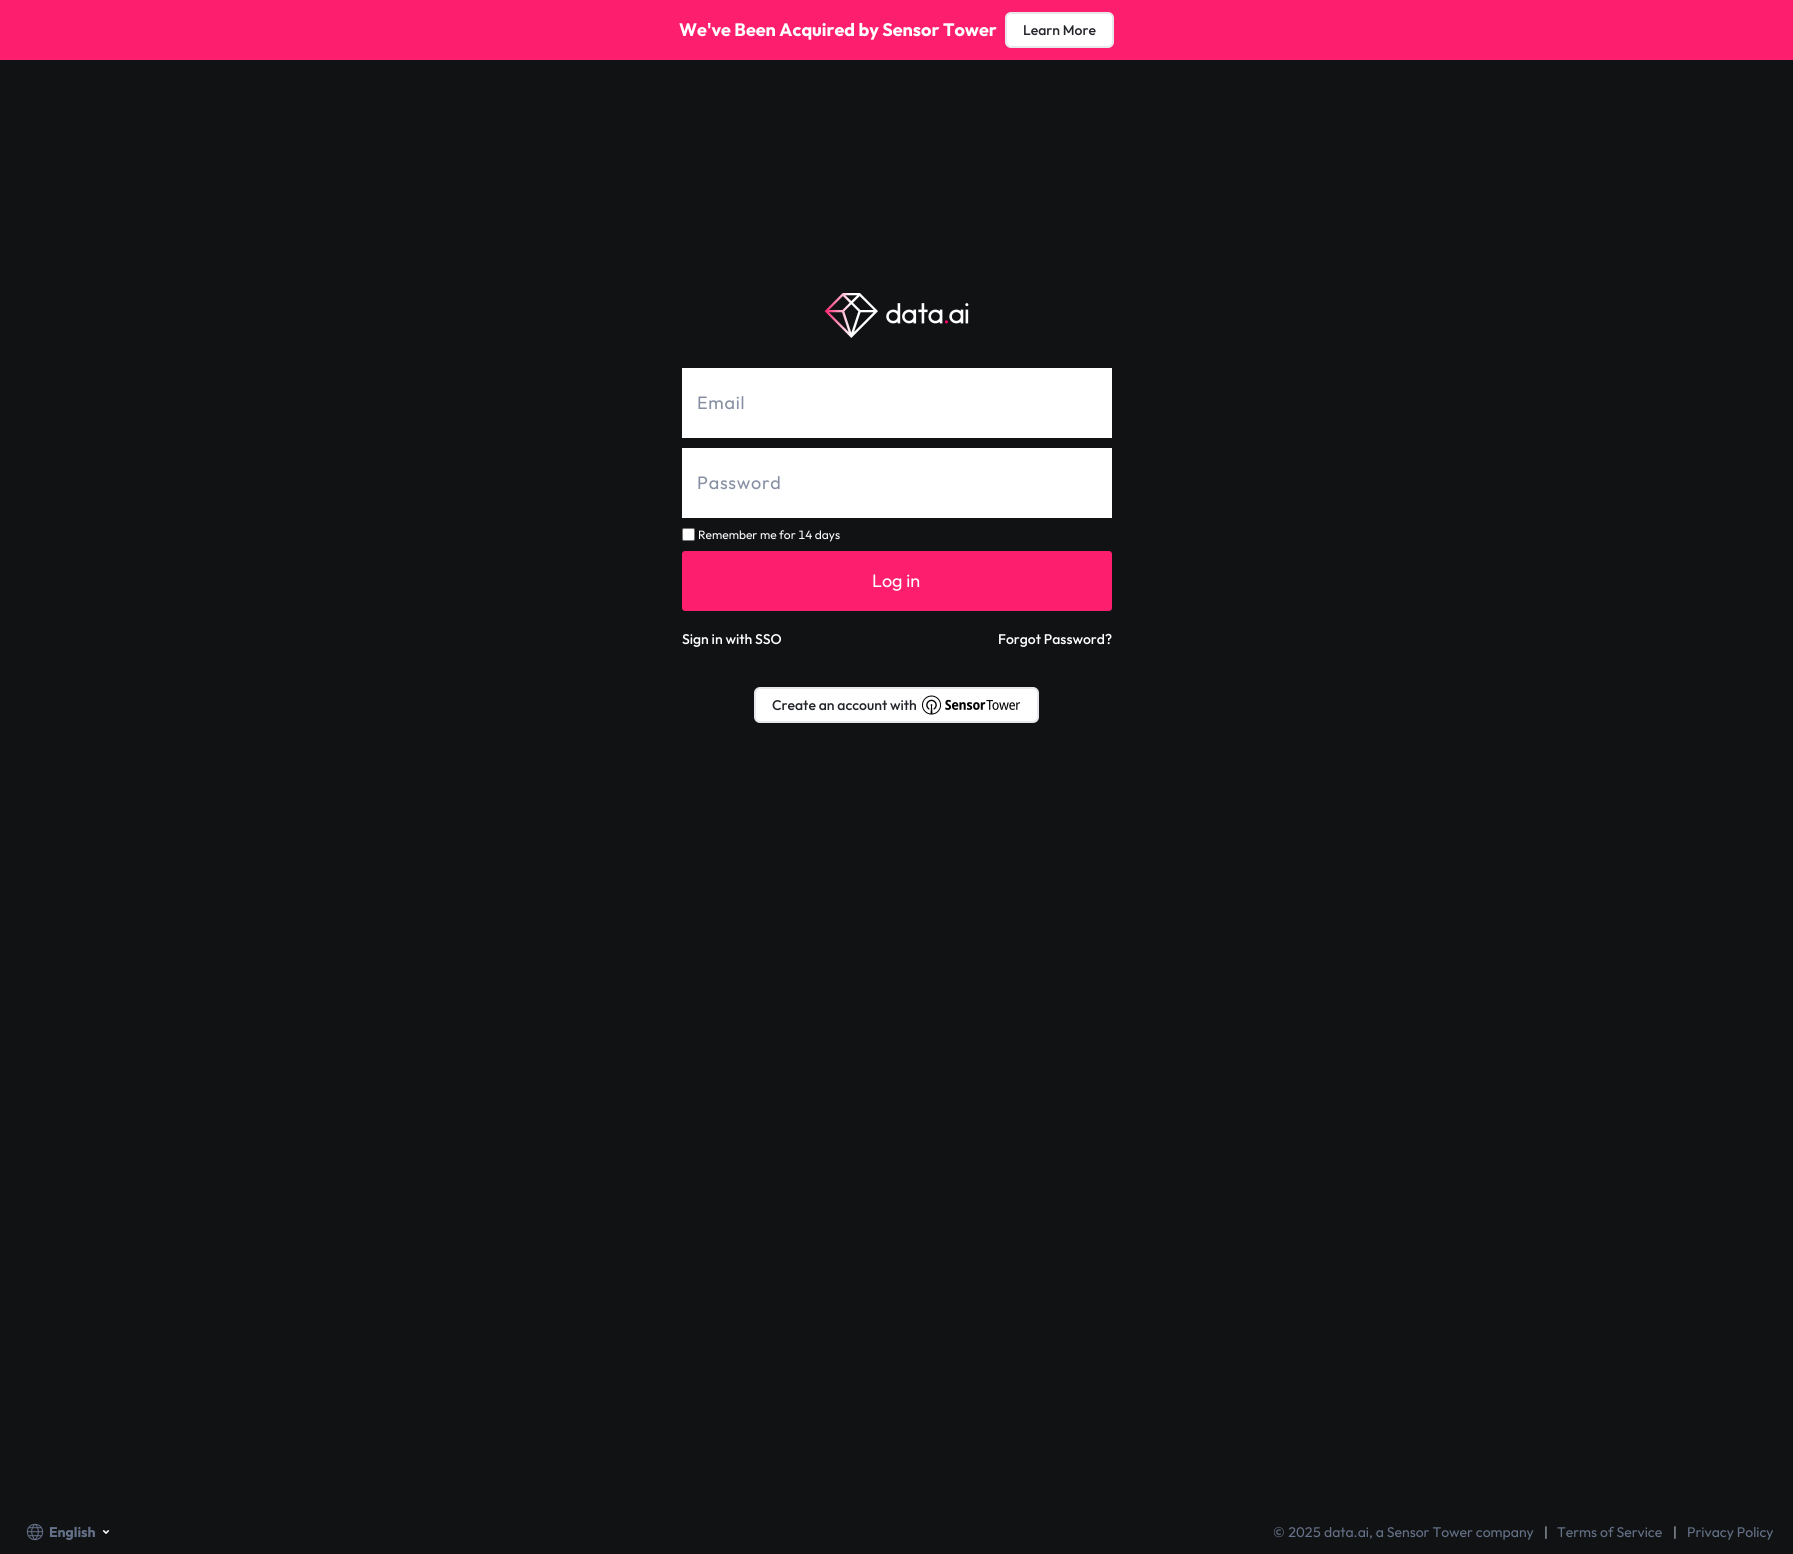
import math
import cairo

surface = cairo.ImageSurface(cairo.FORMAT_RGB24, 1793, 1554)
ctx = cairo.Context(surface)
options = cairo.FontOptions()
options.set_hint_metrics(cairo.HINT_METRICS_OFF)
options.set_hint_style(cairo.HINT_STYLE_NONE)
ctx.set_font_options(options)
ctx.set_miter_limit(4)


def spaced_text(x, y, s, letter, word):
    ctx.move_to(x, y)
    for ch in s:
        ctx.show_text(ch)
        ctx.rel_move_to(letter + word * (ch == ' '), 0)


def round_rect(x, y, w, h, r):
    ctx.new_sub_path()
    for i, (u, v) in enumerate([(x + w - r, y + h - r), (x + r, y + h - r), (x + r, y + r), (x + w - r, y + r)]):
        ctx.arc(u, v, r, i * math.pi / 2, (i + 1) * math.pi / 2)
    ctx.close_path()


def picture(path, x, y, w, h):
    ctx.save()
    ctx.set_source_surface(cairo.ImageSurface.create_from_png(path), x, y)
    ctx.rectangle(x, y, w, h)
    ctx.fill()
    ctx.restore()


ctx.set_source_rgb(0.067, 0.071, 0.075)
ctx.paint()
ctx.set_source_rgb(0.992, 0.122, 0.427)
ctx.rectangle(0, 0, 1793, 60)
ctx.fill()
ctx.select_font_face("Outfit", cairo.FONT_SLANT_NORMAL, cairo.FONT_WEIGHT_BOLD)
ctx.set_font_size(18)
ctx.set_source_rgb(1, 1, 1)
ctx.move_to(679, 36)
ctx.show_text("We've Been Acquired by Sensor Tower")
round_rect(1006, 13, 107, 34, 5)
ctx.fill_preserve()
ctx.set_source_rgb(0.906, 0.91, 0.925)
ctx.stroke()
ctx.select_font_face("Outfit Medium")
ctx.set_font_size(14)
ctx.set_source_rgb(0.137, 0.145, 0.165)
ctx.move_to(1023, 35)
ctx.show_text("Learn More")
picture("img1.png", 824, 293, 145, 45)
ctx.set_source_rgb(1, 1, 1)
ctx.rectangle(682, 368, 430, 70)
ctx.fill()
ctx.select_font_face("Outfit")
ctx.set_font_size(18)
ctx.set_source_rgb(0.529, 0.565, 0.635)
spaced_text(697, 409, "Email", 0.75, 0)
ctx.set_source_rgb(1, 1, 1)
ctx.rectangle(682, 448, 430, 70)
ctx.fill()
ctx.set_source_rgb(0.529, 0.565, 0.635)
spaced_text(697, 489, "Password", 0.75, 0)
ctx.set_source_rgb(1, 1, 1)
round_rect(682.5, 528.5, 12, 12, 1.5)
ctx.fill_preserve()
ctx.set_source_rgb(0.463, 0.463, 0.463)
ctx.set_line_width(1)
ctx.stroke()
ctx.select_font_face("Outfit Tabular")
ctx.set_font_size(12)
ctx.set_source_rgb(1, 1, 1)
ctx.move_to(698, 539)
ctx.show_text("Remember me for 14 days")
ctx.set_source_rgb(0.992, 0.122, 0.427)
round_rect(682, 551, 430, 60, 3)
ctx.fill()
ctx.select_font_face("Outfit")
ctx.set_font_size(18)
ctx.set_source_rgb(1, 1, 1)
ctx.move_to(872, 587)
ctx.show_text("Log in")
ctx.select_font_face("Outfit Medium")
ctx.set_font_size(14)
ctx.move_to(682, 644)
ctx.show_text("Sign in with SSO")
ctx.move_to(998, 644)
ctx.show_text("Forgot Password?")
round_rect(755, 688, 283, 34, 5)
ctx.fill_preserve()
ctx.set_source_rgb(0.906, 0.91, 0.925)
ctx.set_line_width(2)
ctx.stroke()
ctx.set_source_rgb(0.137, 0.145, 0.165)
ctx.move_to(772, 710)
ctx.show_text("Create an account with")
picture("img2.png", 922, 695, 99, 20)
picture("img3.png", 26, 1523, 18, 18)
ctx.select_font_face("Outfit", cairo.FONT_SLANT_NORMAL, cairo.FONT_WEIGHT_BOLD)
ctx.set_source_rgb(0.392, 0.443, 0.533)
ctx.move_to(49, 1537)
ctx.show_text("English")
picture("img4.png", 102, 1530, 8, 4)
ctx.select_font_face("Outfit")
ctx.move_to(1273, 1537)
ctx.show_text("©")
ctx.select_font_face("Outfit Tabular")
ctx.move_to(1288, 1537)
ctx.show_text("2025")
ctx.select_font_face("Outfit")
ctx.move_to(1324, 1537)
ctx.show_text("data.ai, a Sensor Tower company")
ctx.set_source_rgb(0.671, 0.698, 0.753)
ctx.move_to(1544, 1537)
ctx.show_text("|")
ctx.set_source_rgb(0.392, 0.443, 0.533)
ctx.move_to(1557, 1537)
ctx.show_text("Terms of Service")
ctx.set_source_rgb(0.671, 0.698, 0.753)
ctx.move_to(1673, 1537)
ctx.show_text("|")
ctx.set_source_rgb(0.392, 0.443, 0.533)
ctx.move_to(1687, 1537)
ctx.show_text("Privacy Policy")
surface.write_to_png("page.png")
